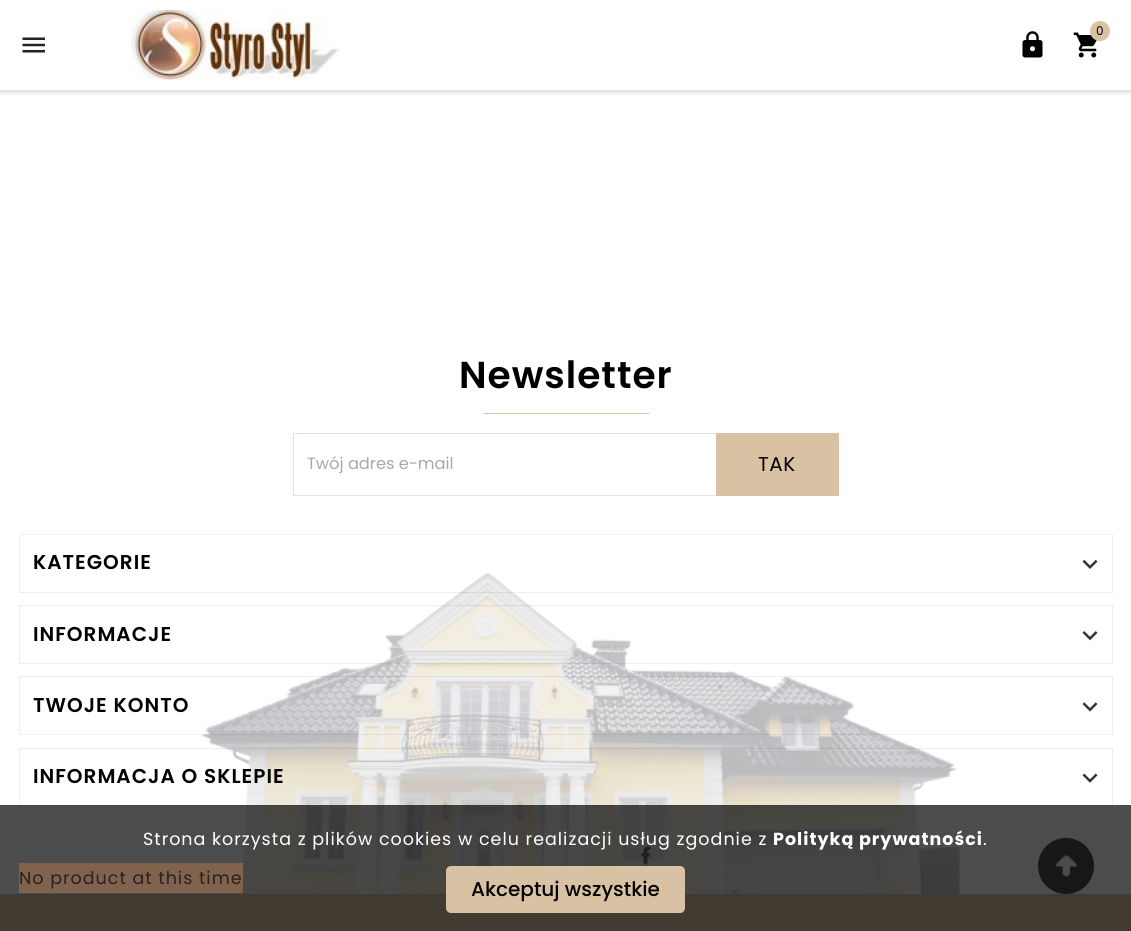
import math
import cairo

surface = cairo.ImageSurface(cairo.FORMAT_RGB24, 1131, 931)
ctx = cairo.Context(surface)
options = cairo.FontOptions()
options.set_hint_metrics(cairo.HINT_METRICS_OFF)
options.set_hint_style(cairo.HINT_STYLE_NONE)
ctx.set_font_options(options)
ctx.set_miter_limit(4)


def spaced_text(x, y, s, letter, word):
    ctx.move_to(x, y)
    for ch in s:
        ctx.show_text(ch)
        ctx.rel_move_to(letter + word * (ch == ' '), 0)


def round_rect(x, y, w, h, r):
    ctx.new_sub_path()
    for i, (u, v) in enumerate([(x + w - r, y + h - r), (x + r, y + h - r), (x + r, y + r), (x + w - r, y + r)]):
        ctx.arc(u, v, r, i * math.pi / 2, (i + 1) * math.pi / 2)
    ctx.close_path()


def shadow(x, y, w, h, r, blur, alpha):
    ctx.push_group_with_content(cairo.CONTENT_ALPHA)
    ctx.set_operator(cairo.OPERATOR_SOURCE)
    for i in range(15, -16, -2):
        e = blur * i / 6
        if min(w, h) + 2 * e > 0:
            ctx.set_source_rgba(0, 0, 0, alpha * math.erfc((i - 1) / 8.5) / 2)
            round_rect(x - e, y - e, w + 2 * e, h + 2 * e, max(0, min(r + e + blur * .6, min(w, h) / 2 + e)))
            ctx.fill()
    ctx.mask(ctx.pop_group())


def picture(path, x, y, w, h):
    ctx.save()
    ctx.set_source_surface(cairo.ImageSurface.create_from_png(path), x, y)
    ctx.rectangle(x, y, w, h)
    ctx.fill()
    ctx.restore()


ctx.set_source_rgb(1, 1, 1)
ctx.paint()
ctx.set_source_rgb(0.502, 0.502, 0.502)
shadow(-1, 0, 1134, 93, 0, 2, 0.27)
ctx.set_source_rgb(1, 1, 1)
ctx.rectangle(0, 0, 1131, 90)
ctx.fill()
picture("img1.png", 129, 10, 210, 70)
picture("img2.png", 1073, 32, 24, 26)
ctx.set_source_rgb(0.851, 0.761, 0.639)
ctx.arc(1100, 31, 10, 0, 2 * math.pi)
ctx.fill()
ctx.select_font_face("Poppins")
ctx.set_font_size(12)
ctx.set_source_rgb(0, 0, 0)
spaced_text(1096, 35, "0", 1, 0)
picture("img3.png", 1022, 31, 21, 27)
picture("img4.png", 22, 37, 23, 16)
picture("img5.png", 202, 573, 758, 321)
ctx.select_font_face("Poppins SemiBold")
ctx.set_font_size(37.5)
spaced_text(459, 388, "Newsletter", 1, 0)
ctx.set_source_rgb(0.851, 0.761, 0.639)
ctx.rectangle(484, 413, 165, 1)
ctx.fill()
ctx.rectangle(293.5, 433.5, 545, 62)
ctx.set_source_rgb(0.925, 0.882, 0.82)
ctx.set_line_width(1)
ctx.stroke()
ctx.select_font_face("Poppins")
ctx.set_font_size(16.25)
ctx.set_source_rgb(0.659, 0.659, 0.659)
ctx.move_to(307, 469)
ctx.show_text("Twój adres e-mail")
ctx.set_source_rgb(0.851, 0.761, 0.639)
ctx.rectangle(716, 433, 123, 63)
ctx.fill()
ctx.set_font_size(20)
ctx.set_source_rgb(0, 0, 0)
spaced_text(758, 471, "TAK", 0.5, 0)
ctx.rectangle(19.5, 534.5, 1093, 58)
ctx.set_source_rgba(0, 0, 0, 0.07)
ctx.stroke()
ctx.select_font_face("Poppins SemiBold")
ctx.set_source_rgb(0, 0, 0)
spaced_text(33, 569, "KATEGORIE", 1, 0)
picture("img6.png", 1082, 559, 16, 10)
ctx.rectangle(19.5, 605.5, 1093, 58)
ctx.set_source_rgba(0, 0, 0, 0.07)
ctx.stroke()
ctx.set_source_rgb(0, 0, 0)
spaced_text(33, 641, "INFORMACJE", 1, 0)
picture("img7.png", 1082, 631, 16, 10)
ctx.rectangle(19.5, 676.5, 1093, 58)
ctx.set_source_rgba(0, 0, 0, 0.07)
ctx.stroke()
ctx.set_source_rgb(0, 0, 0)
spaced_text(33, 712, "TWOJE KONTO", 1, 0)
picture("img8.png", 1082, 702, 16, 10)
ctx.rectangle(19.5, 748.5, 1093, 57)
ctx.set_source_rgba(0, 0, 0, 0.07)
ctx.stroke()
ctx.set_source_rgb(0, 0, 0)
spaced_text(33, 783, "INFORMACJA O SKLEPIE", 1, 0)
picture("img9.png", 1082, 773, 16, 10)
picture("img10.png", 640, 845, 12, 20)
ctx.set_source_rgb(0.298, 0.298, 0.298)
ctx.arc(1066, 866, 28, 0, 2 * math.pi)
ctx.fill()
picture("img11.png", 1055, 854, 23, 23)
ctx.set_source_rgb(0.851, 0.761, 0.639)
ctx.rectangle(0, 894, 1131, 37)
ctx.fill()
ctx.set_source_rgba(0, 0, 0, 0.7)
ctx.rectangle(0, 805, 1131, 126)
ctx.fill()
ctx.set_source_rgba(1, 0.604, 0.322, 0.3)
ctx.rectangle(19, 863, 224, 30)
ctx.fill()
ctx.select_font_face("Poppins")
ctx.set_font_size(17.5)
ctx.set_source_rgb(0.137, 0.137, 0.137)
spaced_text(19, 884, "No product at this time", 1, 0)
ctx.set_source_rgb(1, 1, 1)
spaced_text(143, 845, "Strona korzysta z plików cookies w celu realizacji usług zgodnie z", 1, 0)
ctx.select_font_face("Poppins", cairo.FONT_SLANT_NORMAL, cairo.FONT_WEIGHT_BOLD)
spaced_text(773, 845, "Polityką prywatności", 1, 0)
ctx.select_font_face("Poppins")
spaced_text(983, 845, ".", 1, 0)
ctx.set_source_rgb(0.851, 0.761, 0.639)
round_rect(446, 866, 239, 47, 5)
ctx.fill()
ctx.select_font_face("Poppins Medium")
ctx.set_font_size(20)
ctx.set_source_rgb(0, 0, 0)
ctx.move_to(471, 896)
ctx.show_text("Akceptuj wszystkie")
surface.write_to_png("page.png")
